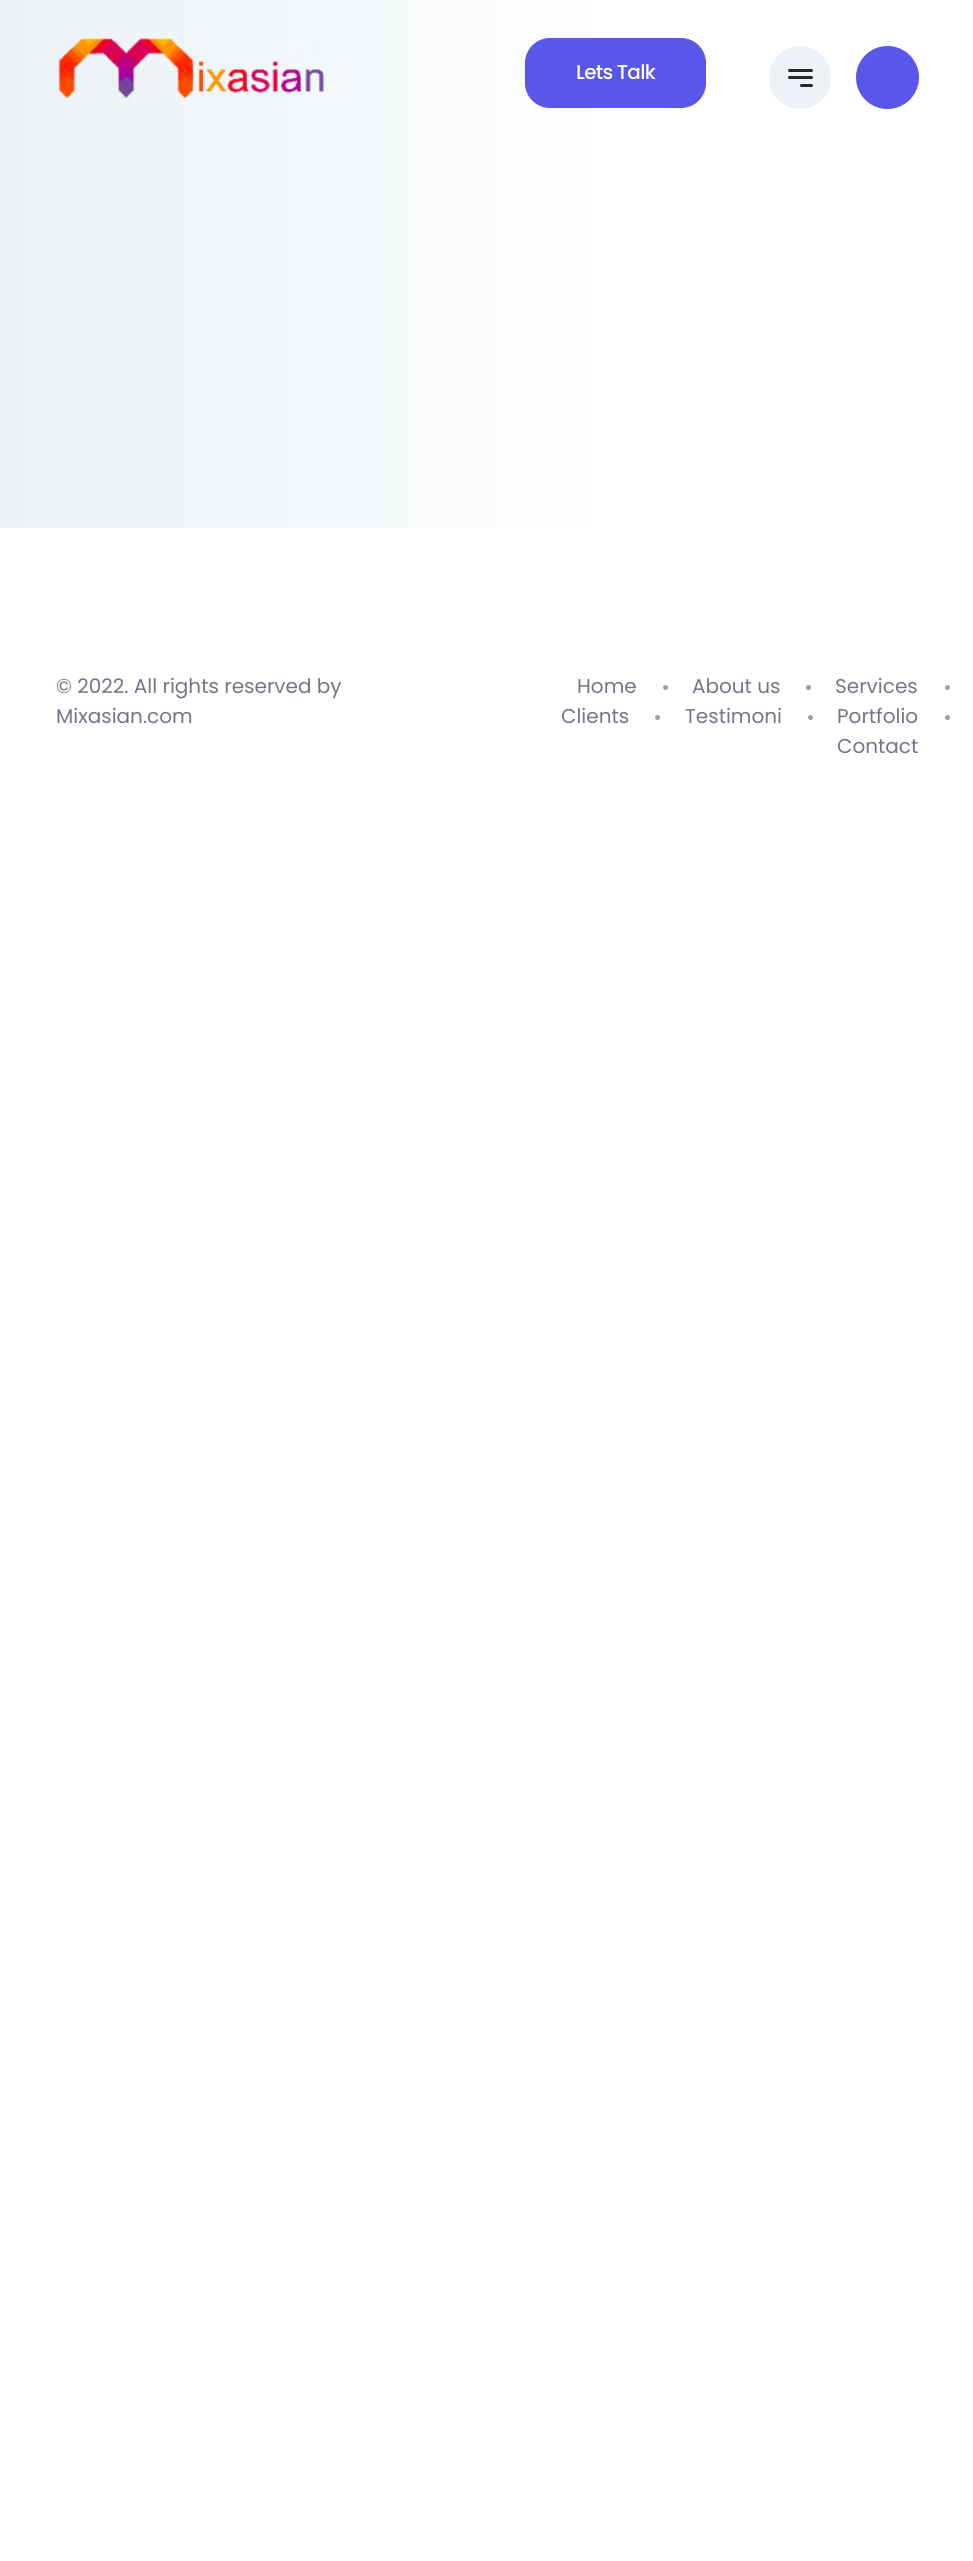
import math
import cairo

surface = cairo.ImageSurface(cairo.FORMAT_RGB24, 973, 2561)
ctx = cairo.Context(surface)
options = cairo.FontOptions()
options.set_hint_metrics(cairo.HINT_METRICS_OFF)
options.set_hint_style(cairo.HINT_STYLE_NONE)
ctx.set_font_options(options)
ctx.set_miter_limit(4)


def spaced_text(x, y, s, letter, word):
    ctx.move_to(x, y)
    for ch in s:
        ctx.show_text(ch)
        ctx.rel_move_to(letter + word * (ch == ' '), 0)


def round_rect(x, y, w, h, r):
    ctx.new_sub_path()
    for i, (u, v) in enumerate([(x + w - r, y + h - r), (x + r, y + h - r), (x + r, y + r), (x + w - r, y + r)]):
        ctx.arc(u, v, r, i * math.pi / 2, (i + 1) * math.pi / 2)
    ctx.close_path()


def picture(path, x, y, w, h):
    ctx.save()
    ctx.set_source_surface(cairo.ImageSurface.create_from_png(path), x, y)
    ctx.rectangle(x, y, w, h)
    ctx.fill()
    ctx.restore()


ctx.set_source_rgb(1, 1, 1)
ctx.paint()
gradient = cairo.LinearGradient(0, 264, 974, 264)
gradient.add_color_stop_rgba(0, 0.925, 0.949, 0.965, 1)
gradient.add_color_stop_rgba(0.7, 1, 1, 1, 1)
ctx.set_source(gradient)
ctx.rectangle(0, 0, 592, 528)
ctx.fill()
picture("img1.png", 58, 38, 266, 61)
ctx.set_source_rgb(0.349, 0.337, 0.914)
round_rect(525.5, 38.5, 180, 69, 24.5)
ctx.fill_preserve()
ctx.set_line_width(1)
ctx.stroke()
ctx.select_font_face("Poppins Medium")
ctx.set_font_size(20)
ctx.set_source_rgb(1, 1, 1)
spaced_text(576, 79, "Lets Talk", -0.75, 0)
ctx.set_source_rgb(0.925, 0.949, 0.965)
round_rect(769, 46, 62, 63, 31)
ctx.fill()
ctx.set_source_rgb(0.153, 0.153, 0.18)
round_rect(788, 69, 25, 3, 1.5)
ctx.fill()
round_rect(788, 76, 25, 3, 1.5)
ctx.fill()
round_rect(800, 84, 13, 3, 1.5)
ctx.fill()
ctx.set_source_rgb(0.349, 0.337, 0.914)
ctx.arc(887.5, 77.5, 31.5, 0, 2 * math.pi)
ctx.fill()
ctx.select_font_face("Poppins")
ctx.set_source_rgb(0.459, 0.459, 0.537)
ctx.move_to(56, 693)
ctx.show_text("© 2022. All rights reserved by")
ctx.move_to(56, 723)
ctx.show_text("Mixasian.com")
ctx.move_to(577, 693)
ctx.show_text("Home")
ctx.set_source_rgb(0.6, 0.631, 0.667)
ctx.new_path()
ctx.arc(665.5, 687.5, 2.5, 0, 2 * math.pi)
ctx.fill()
ctx.set_source_rgb(0.459, 0.459, 0.537)
ctx.move_to(692, 693)
ctx.show_text("About us")
ctx.set_source_rgb(0.6, 0.631, 0.667)
ctx.new_path()
ctx.arc(808.5, 687.5, 2.5, 0, 2 * math.pi)
ctx.fill()
ctx.set_source_rgb(0.459, 0.459, 0.537)
ctx.move_to(835, 693)
ctx.show_text("Services")
ctx.set_source_rgb(0.6, 0.631, 0.667)
ctx.new_path()
ctx.arc(947.5, 687.5, 2.5, 0, 2 * math.pi)
ctx.fill()
ctx.set_source_rgb(0.459, 0.459, 0.537)
ctx.move_to(561, 723)
ctx.show_text("Clients")
ctx.set_source_rgb(0.6, 0.631, 0.667)
ctx.new_path()
ctx.arc(657.5, 717.5, 2.5, 0, 2 * math.pi)
ctx.fill()
ctx.set_source_rgb(0.459, 0.459, 0.537)
ctx.move_to(685, 723)
ctx.show_text("Testimoni")
ctx.set_source_rgb(0.6, 0.631, 0.667)
ctx.new_path()
ctx.arc(810.5, 717.5, 2.5, 0, 2 * math.pi)
ctx.fill()
ctx.set_source_rgb(0.459, 0.459, 0.537)
ctx.move_to(837, 723)
ctx.show_text("Portfolio")
ctx.set_source_rgb(0.6, 0.631, 0.667)
ctx.new_path()
ctx.arc(947.5, 717.5, 2.5, 0, 2 * math.pi)
ctx.fill()
ctx.set_source_rgb(0.459, 0.459, 0.537)
ctx.move_to(837, 753)
ctx.show_text("Contact")
surface.write_to_png("page.png")
